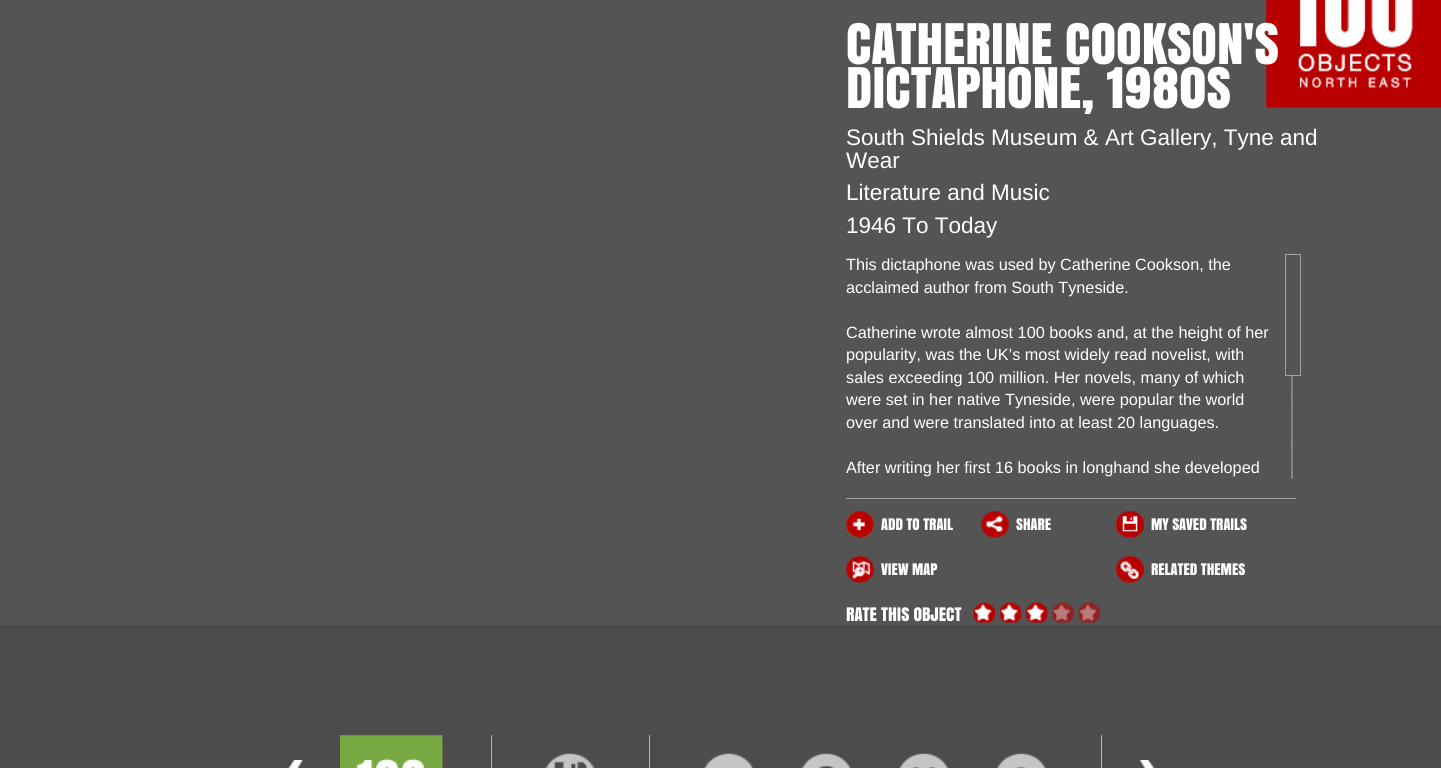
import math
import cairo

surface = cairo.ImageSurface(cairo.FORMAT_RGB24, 1441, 768)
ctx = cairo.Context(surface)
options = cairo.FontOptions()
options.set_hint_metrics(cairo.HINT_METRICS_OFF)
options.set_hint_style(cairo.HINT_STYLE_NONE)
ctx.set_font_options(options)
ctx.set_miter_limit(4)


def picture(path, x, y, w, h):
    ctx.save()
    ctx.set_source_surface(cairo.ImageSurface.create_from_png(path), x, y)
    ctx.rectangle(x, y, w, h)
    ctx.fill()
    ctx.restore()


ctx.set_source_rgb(0.298, 0.298, 0.298)
ctx.paint()
ctx.set_source_rgb(0.329, 0.329, 0.329)
ctx.rectangle(0, 0, 1441, 625)
ctx.fill()
picture("img12.png", 1266, 0, 175, 108)
ctx.select_font_face("Anton")
ctx.set_font_size(52.5)
ctx.set_source_rgb(1, 1, 1)
ctx.move_to(846, 64)
ctx.show_text("CATHERINE COOKSON'S")
ctx.move_to(846, 108)
ctx.show_text("DICTAPHONE, 1980S")
ctx.select_font_face("Liberation Sans")
ctx.set_font_size(22.5)
ctx.move_to(846, 145)
ctx.show_text("South Shields Museum & Art Gallery, Tyne and")
ctx.move_to(846, 168)
ctx.show_text("Wear")
ctx.move_to(846, 200)
ctx.show_text("Literature and Music")
ctx.move_to(846, 233)
ctx.show_text("1946 To Today")
ctx.set_font_size(16.25)
ctx.move_to(846, 270)
ctx.show_text("This dictaphone was used by Catherine Cookson, the")
ctx.move_to(846, 293)
ctx.show_text("acclaimed author from South Tyneside.")
ctx.move_to(846, 338)
ctx.show_text("Catherine wrote almost 100 books and, at the height of her")
ctx.move_to(846, 360)
ctx.show_text("popularity, was the UK’s most widely read novelist, with")
ctx.move_to(846, 383)
ctx.show_text("sales exceeding 100 million. Her novels, many of which")
ctx.move_to(846, 405)
ctx.show_text("were set in her native Tyneside, were popular the world")
ctx.move_to(846, 428)
ctx.show_text("over and were translated into at least 20 languages.")
ctx.move_to(846, 473)
ctx.show_text("After writing her first 16 books in longhand she developed")
picture("img1.png", 1291, 253, 2, 226)
ctx.set_source_rgb(0.329, 0.329, 0.329)
ctx.rectangle(1291, 255, 2, 120)
ctx.fill()
ctx.rectangle(1285.5, 254.5, 15, 121)
ctx.set_source_rgb(0.635, 0.635, 0.635)
ctx.set_line_width(1)
ctx.stroke()
ctx.rectangle(846, 498, 450, 1)
ctx.fill()
picture("img2.png", 846, 511, 28, 27)
ctx.select_font_face("Anton")
ctx.set_font_size(15)
ctx.set_source_rgb(1, 1, 1)
ctx.move_to(881, 530)
ctx.show_text("ADD TO TRAIL")
picture("img3.png", 981, 511, 28, 27)
ctx.move_to(1016, 530)
ctx.show_text("SHARE")
picture("img4.png", 1116, 511, 28, 27)
ctx.move_to(1151, 530)
ctx.show_text("MY SAVED TRAILS")
picture("img5.png", 846, 556, 28, 27)
ctx.move_to(881, 575)
ctx.show_text("VIEW MAP")
picture("img6.png", 1116, 556, 28, 27)
ctx.move_to(1151, 575)
ctx.show_text("RELATED THEMES")
ctx.set_font_size(17.5)
ctx.move_to(846, 621)
ctx.show_text("RATE THIS OBJECT")
picture("img7.png", 973, 602, 22, 21)
picture("img8.png", 1000, 602, 22, 21)
picture("img9.png", 1026, 602, 22, 21)
picture("img10.png", 1052, 602, 22, 21)
picture("img11.png", 1078, 602, 22, 21)
picture("img13.png", 287, 760, 16, 8)
ctx.set_source_rgb(0.71, 0.71, 0.71)
ctx.rectangle(491, 735, 1, 33)
ctx.fill()
picture("img14.png", 340, 735, 103, 33)
picture("img15.png", 545, 753, 50, 15)
ctx.rectangle(649, 735, 1, 33)
ctx.fill()
ctx.rectangle(1101, 735, 1, 33)
ctx.fill()
picture("img16.png", 704, 753, 50, 15)
picture("img17.png", 801, 753, 50, 15)
picture("img18.png", 899, 753, 50, 15)
picture("img19.png", 996, 753, 50, 15)
picture("img20.png", 1140, 760, 15, 8)
surface.write_to_png("page.png")
